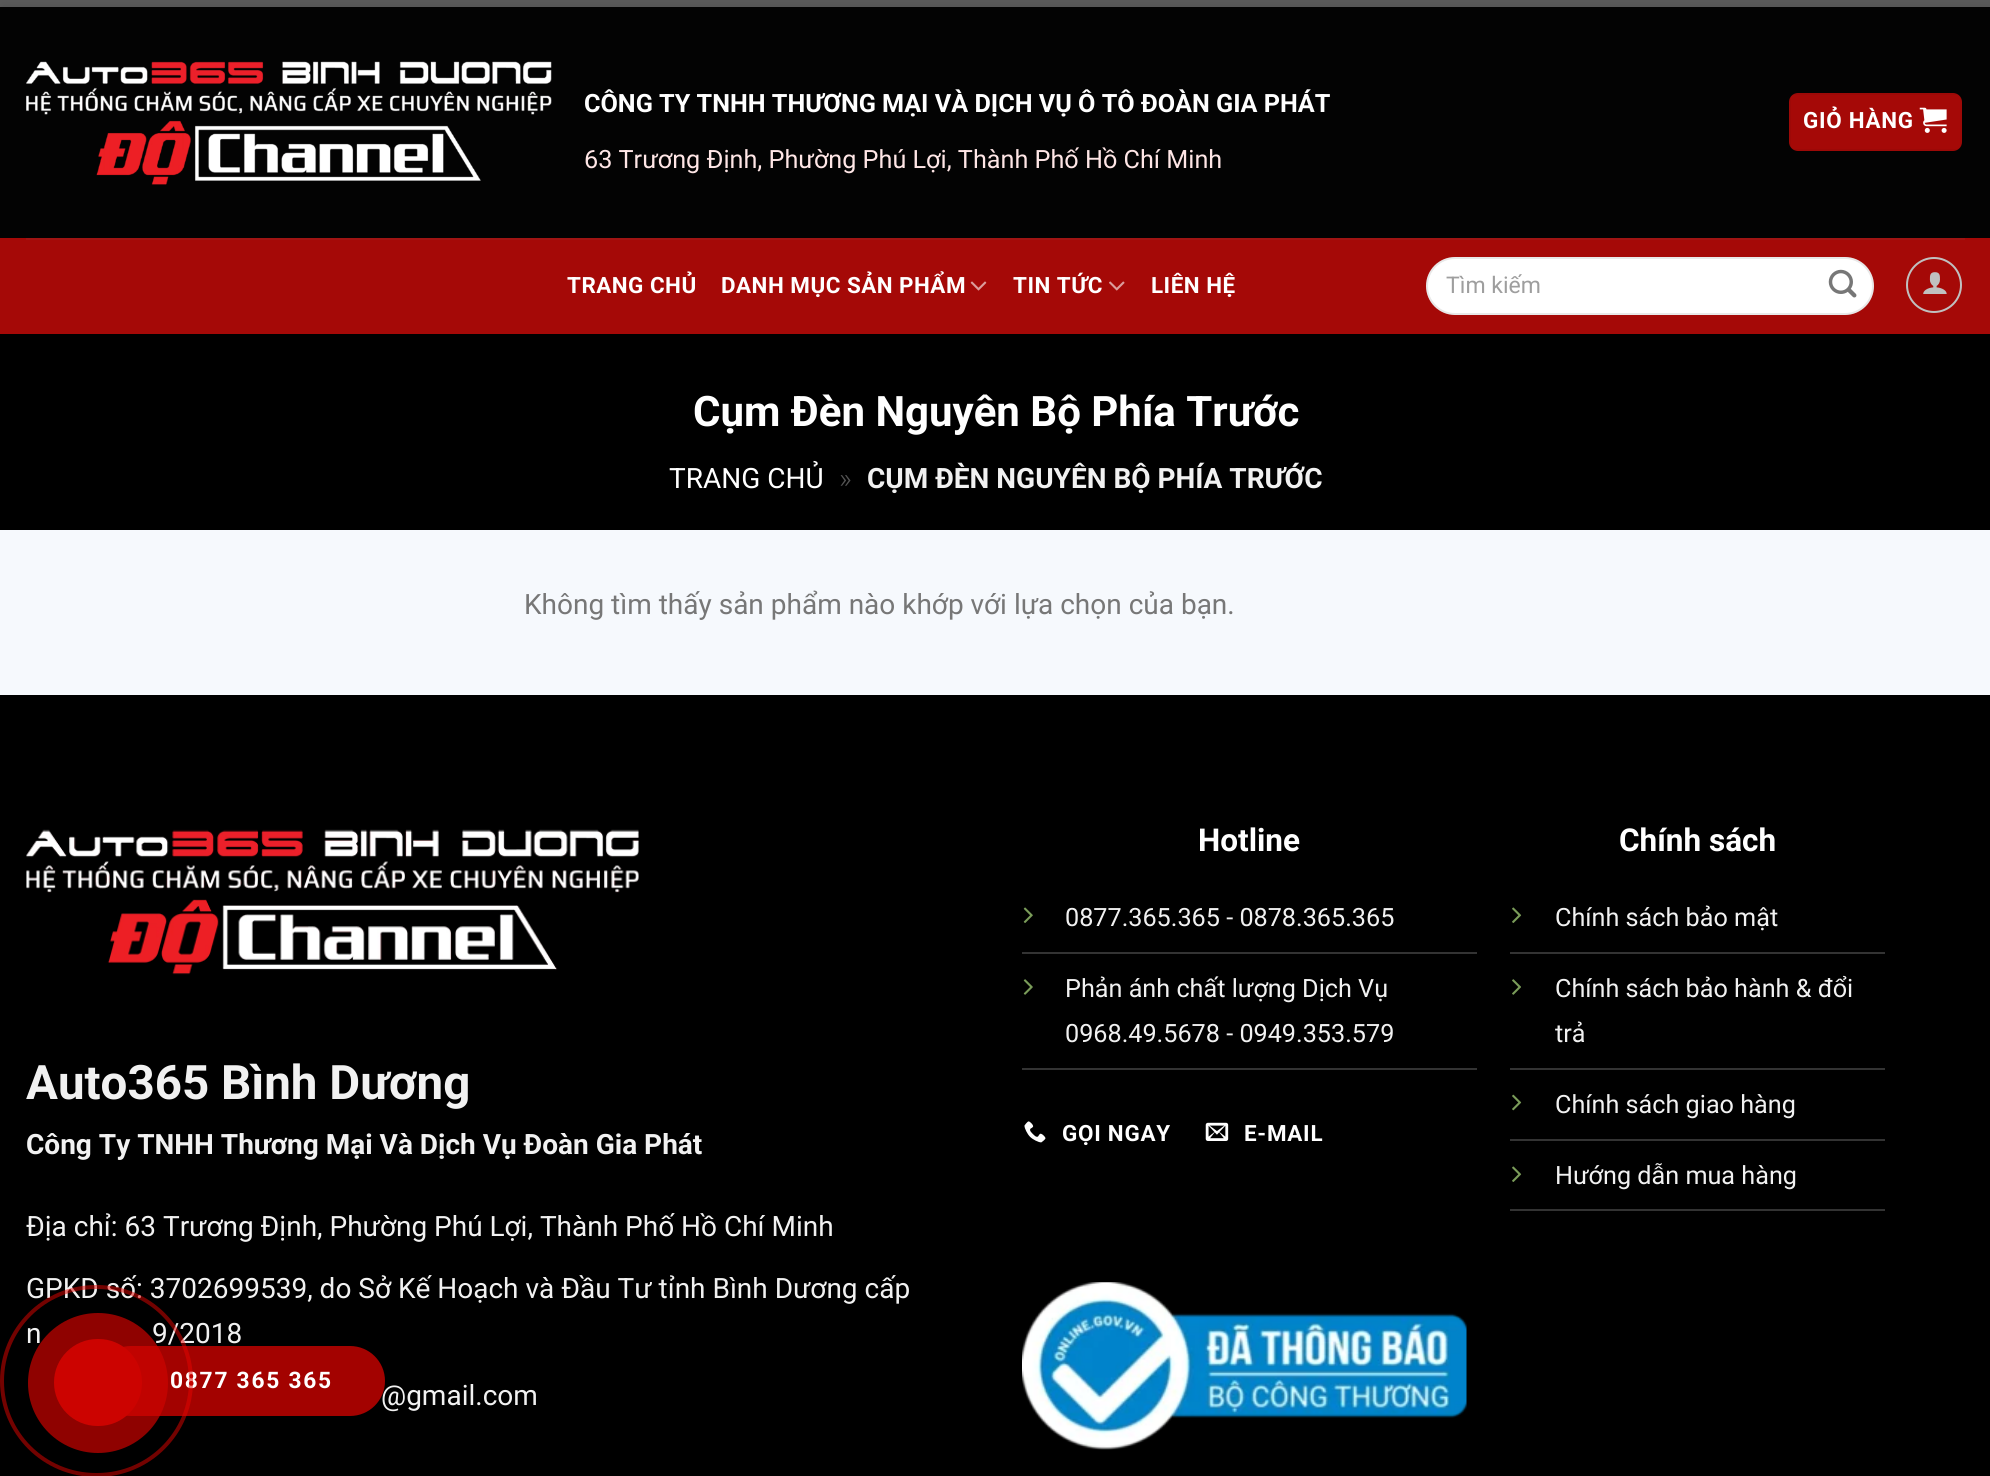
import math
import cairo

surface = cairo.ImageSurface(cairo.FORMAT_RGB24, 1990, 1476)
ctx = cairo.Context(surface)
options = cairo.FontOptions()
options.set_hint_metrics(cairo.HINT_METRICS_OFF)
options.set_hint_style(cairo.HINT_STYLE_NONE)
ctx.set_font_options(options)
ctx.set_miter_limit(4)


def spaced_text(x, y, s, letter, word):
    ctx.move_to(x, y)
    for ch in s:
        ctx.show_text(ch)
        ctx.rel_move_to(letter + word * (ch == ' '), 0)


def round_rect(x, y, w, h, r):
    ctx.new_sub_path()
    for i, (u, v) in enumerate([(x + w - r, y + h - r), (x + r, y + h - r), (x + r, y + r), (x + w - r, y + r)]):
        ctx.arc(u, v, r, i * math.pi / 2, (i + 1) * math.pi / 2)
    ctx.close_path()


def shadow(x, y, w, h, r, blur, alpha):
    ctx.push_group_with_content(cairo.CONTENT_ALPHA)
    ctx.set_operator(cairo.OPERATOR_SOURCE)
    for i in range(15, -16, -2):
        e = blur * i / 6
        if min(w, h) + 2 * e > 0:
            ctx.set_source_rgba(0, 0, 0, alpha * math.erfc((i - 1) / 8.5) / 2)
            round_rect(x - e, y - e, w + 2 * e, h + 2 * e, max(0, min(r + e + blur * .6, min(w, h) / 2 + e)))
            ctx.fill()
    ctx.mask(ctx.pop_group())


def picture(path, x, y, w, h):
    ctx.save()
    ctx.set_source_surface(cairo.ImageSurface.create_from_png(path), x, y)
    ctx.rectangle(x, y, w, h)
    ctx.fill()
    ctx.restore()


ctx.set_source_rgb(0.357, 0.357, 0.357)
ctx.paint()
ctx.set_source_rgb(0.961, 0.973, 0.992)
ctx.rectangle(0, 530, 1990, 165)
ctx.fill()
ctx.set_source_rgb(0, 0, 0)
ctx.rectangle(0, 334, 1990, 196)
ctx.fill()
ctx.set_source_rgb(0, 0, 0)
shadow(2, 9, 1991, 327, 0, 9, 0.15)
ctx.set_source_rgb(0.012, 0.012, 0.012)
ctx.rectangle(0, 7, 1990, 231)
ctx.fill()
picture("img1.png", 26, 61, 526, 124)
ctx.select_font_face("Roboto", cairo.FONT_SLANT_NORMAL, cairo.FONT_WEIGHT_BOLD)
ctx.set_font_size(25.2)
ctx.set_source_rgb(1, 1, 1)
ctx.move_to(584, 112)
ctx.show_text("CÔNG TY TNHH THƯƠNG MẠI VÀ DỊCH VỤ Ô TÔ ĐOÀN GIA PHÁT")
ctx.select_font_face("Roboto")
ctx.set_source_rgb(1, 0.902, 0.902)
ctx.move_to(584, 168)
ctx.show_text("63 Trương Định, Phường Phú Lợi, Thành Phố Hồ Chí Minh")
ctx.set_source_rgb(0.647, 0.039, 0.031)
round_rect(1789, 93, 173, 58, 9)
ctx.fill()
ctx.rectangle(1790, 94, 171, 56)
ctx.set_source_rgba(0, 0, 0, 0.05)
ctx.stroke()
ctx.select_font_face("Roboto", cairo.FONT_SLANT_NORMAL, cairo.FONT_WEIGHT_BOLD)
ctx.set_font_size(22.4)
ctx.set_source_rgb(1, 1, 1)
spaced_text(1803, 128, "GIỎ HÀNG", 0.75, 0)
picture("img2.png", 1919, 107, 28, 26)
ctx.set_source_rgb(0.647, 0.039, 0.031)
ctx.rectangle(0, 238, 1990, 96)
ctx.fill()
ctx.set_source_rgb(0.627, 0.082, 0.075)
ctx.rectangle(26, 238, 1939, 2)
ctx.fill()
ctx.set_source_rgb(1, 1, 1)
spaced_text(567, 293, "TRANG CHỦ", 0.5, 0)
spaced_text(721, 293, "DANH MỤC SẢN PHẨM", 0.5, 0)
picture("img3.png", 970, 281, 17, 10)
spaced_text(1013, 293, "TIN TỨC", 0.5, 0)
picture("img4.png", 1109, 281, 16, 10)
spaced_text(1151, 293, "LIÊN HỆ", 0.5, 0)
round_rect(1426, 257, 448, 58, 29)
ctx.fill()
round_rect(1427, 258, 446, 56, 28)
ctx.set_source_rgba(0, 0, 0, 0.09)
ctx.stroke()
ctx.select_font_face("Roboto")
ctx.set_font_size(23)
ctx.set_source_rgb(0.62, 0.62, 0.62)
ctx.move_to(1446, 293)
ctx.show_text("Tìm kiếm")
picture("img5.png", 1828, 269, 29, 29)
ctx.arc(1934, 285, 27, 0, 2 * math.pi)
ctx.set_source_rgb(0.753, 0.753, 0.753)
ctx.stroke()
picture("img6.png", 1923, 272, 24, 22)
ctx.select_font_face("Roboto", cairo.FONT_SLANT_NORMAL, cairo.FONT_WEIGHT_BOLD)
ctx.set_font_size(42)
ctx.set_source_rgb(1, 1, 1)
ctx.move_to(693, 426)
ctx.show_text("Cụm Đèn Nguyên Bộ Phía Trước")
ctx.select_font_face("Roboto")
ctx.set_font_size(28)
ctx.move_to(669, 488)
ctx.show_text("TRANG CHỦ")
ctx.select_font_face("Roboto Light")
ctx.set_source_rgb(0.329, 0.329, 0.329)
ctx.move_to(839, 488)
ctx.show_text("»")
ctx.select_font_face("Roboto", cairo.FONT_SLANT_NORMAL, cairo.FONT_WEIGHT_BOLD)
ctx.set_source_rgb(0.945, 0.945, 0.945)
ctx.move_to(867, 488)
ctx.show_text("CỤM ĐÈN NGUYÊN BỘ PHÍA TRƯỚC")
ctx.select_font_face("Roboto")
ctx.set_source_rgb(0.467, 0.467, 0.467)
ctx.move_to(524, 614)
ctx.show_text("Không tìm thấy sản phẩm nào khớp với lựa chọn của bạn.")
ctx.set_source_rgb(0, 0, 0)
ctx.rectangle(0, 695, 1990, 781)
ctx.fill()
ctx.select_font_face("Roboto", cairo.FONT_SLANT_NORMAL, cairo.FONT_WEIGHT_BOLD)
ctx.set_font_size(31.5)
ctx.set_source_rgb(1, 1, 1)
ctx.move_to(1198, 851)
ctx.show_text("Hotline")
ctx.set_source_rgb(0.2, 0.2, 0.2)
ctx.rectangle(1022, 952, 455, 2)
ctx.fill()
picture("img7.png", 1023, 907, 10, 16)
ctx.select_font_face("Roboto")
ctx.set_font_size(25.2)
ctx.set_source_rgb(0.945, 0.945, 0.945)
ctx.move_to(1065, 926)
ctx.show_text("0877.365.365 - 0878.365.365")
ctx.set_source_rgb(0.2, 0.2, 0.2)
ctx.rectangle(1022, 1068, 455, 2)
ctx.fill()
picture("img8.png", 1023, 979, 10, 16)
ctx.set_source_rgb(0.945, 0.945, 0.945)
ctx.move_to(1065, 997)
ctx.show_text("Phản ánh chất lượng Dịch Vụ")
ctx.move_to(1065, 1042)
ctx.show_text("0968.49.5678 - 0949.353.579")
picture("img9.png", 1024, 1121, 22, 22)
ctx.select_font_face("Roboto", cairo.FONT_SLANT_NORMAL, cairo.FONT_WEIGHT_BOLD)
ctx.set_font_size(22.4)
ctx.set_source_rgb(1, 1, 1)
spaced_text(1062, 1141, "GỌI NGAY", 0.75, 0)
picture("img10.png", 1205, 1122, 24, 19)
spaced_text(1244, 1141, "E-MAIL", 0.75, 0)
ctx.set_font_size(31.5)
ctx.move_to(1619, 851)
ctx.show_text("Chính sách")
ctx.set_source_rgb(0.2, 0.2, 0.2)
ctx.rectangle(1510, 952, 375, 2)
ctx.fill()
picture("img11.png", 1512, 907, 10, 16)
ctx.select_font_face("Roboto")
ctx.set_font_size(25.2)
ctx.set_source_rgb(0.945, 0.945, 0.945)
ctx.move_to(1555, 926)
ctx.show_text("Chính sách bảo mật")
ctx.set_source_rgb(0.2, 0.2, 0.2)
ctx.rectangle(1510, 1068, 375, 2)
ctx.fill()
picture("img12.png", 1512, 979, 9, 16)
ctx.set_source_rgb(0.945, 0.945, 0.945)
ctx.move_to(1555, 997)
ctx.show_text("Chính sách bảo hành & đổi")
ctx.move_to(1555, 1042)
ctx.show_text("trả")
ctx.set_source_rgb(0.2, 0.2, 0.2)
ctx.rectangle(1510, 1139, 375, 2)
ctx.fill()
picture("img13.png", 1512, 1094, 10, 17)
ctx.set_source_rgb(0.945, 0.945, 0.945)
ctx.move_to(1555, 1113)
ctx.show_text("Chính sách giao hàng")
ctx.set_source_rgb(0.2, 0.2, 0.2)
ctx.rectangle(1510, 1209, 375, 2)
ctx.fill()
picture("img11.png", 1512, 1166, 10, 16)
ctx.set_source_rgb(0.945, 0.945, 0.945)
ctx.move_to(1555, 1184)
ctx.show_text("Hướng dẫn mua hàng")
picture("img14.png", 1022, 1282, 445, 168)
picture("img15.png", 26, 829, 613, 146)
ctx.select_font_face("Roboto", cairo.FONT_SLANT_NORMAL, cairo.FONT_WEIGHT_BOLD)
ctx.set_font_size(47.5)
ctx.move_to(26, 1099)
ctx.show_text("Auto365 Bình Dương")
ctx.set_font_size(28)
ctx.move_to(26, 1154)
ctx.show_text("Công Ty TNHH Thương Mại Và Dịch Vụ Đoàn Gia Phát")
ctx.select_font_face("Roboto")
ctx.move_to(26, 1236)
ctx.show_text("Địa chỉ: 63 Trương Định, Phường Phú Lợi, Thành Phố Hồ Chí Minh")
ctx.move_to(26, 1298)
ctx.show_text("GPKD số: 3702699539, do Sở Kế Hoạch và Đầu Tư tỉnh Bình Dương cấp")
ctx.move_to(26, 1343)
ctx.show_text("n")
ctx.move_to(152, 1343)
ctx.show_text("9/2018")
ctx.move_to(381, 1405)
ctx.show_text("@gmail.com")
ctx.set_source_rgba(0.8, 0.012, 0, 0.8)
round_rect(96, 1346, 289, 70, 35)
ctx.fill()
ctx.select_font_face("Roboto", cairo.FONT_SLANT_NORMAL, cairo.FONT_WEIGHT_BOLD)
ctx.set_font_size(22.75)
ctx.set_source_rgb(1, 1, 1)
spaced_text(170, 1388, "0877 365 365", 1.75, 0)
round_rect(2, 1287, 189, 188, 94)
ctx.set_source_rgba(0.902, 0.016, 0, 0.5)
ctx.set_line_width(4)
ctx.stroke()
ctx.set_source_rgba(0.8, 0.012, 0, 0.7)
ctx.arc(98, 1383, 70, 0, 2 * math.pi)
ctx.fill()
ctx.set_source_rgb(0.8, 0.012, 0)
round_rect(54, 1339, 88, 87, 43.5)
ctx.fill()
surface.write_to_png("page.png")
